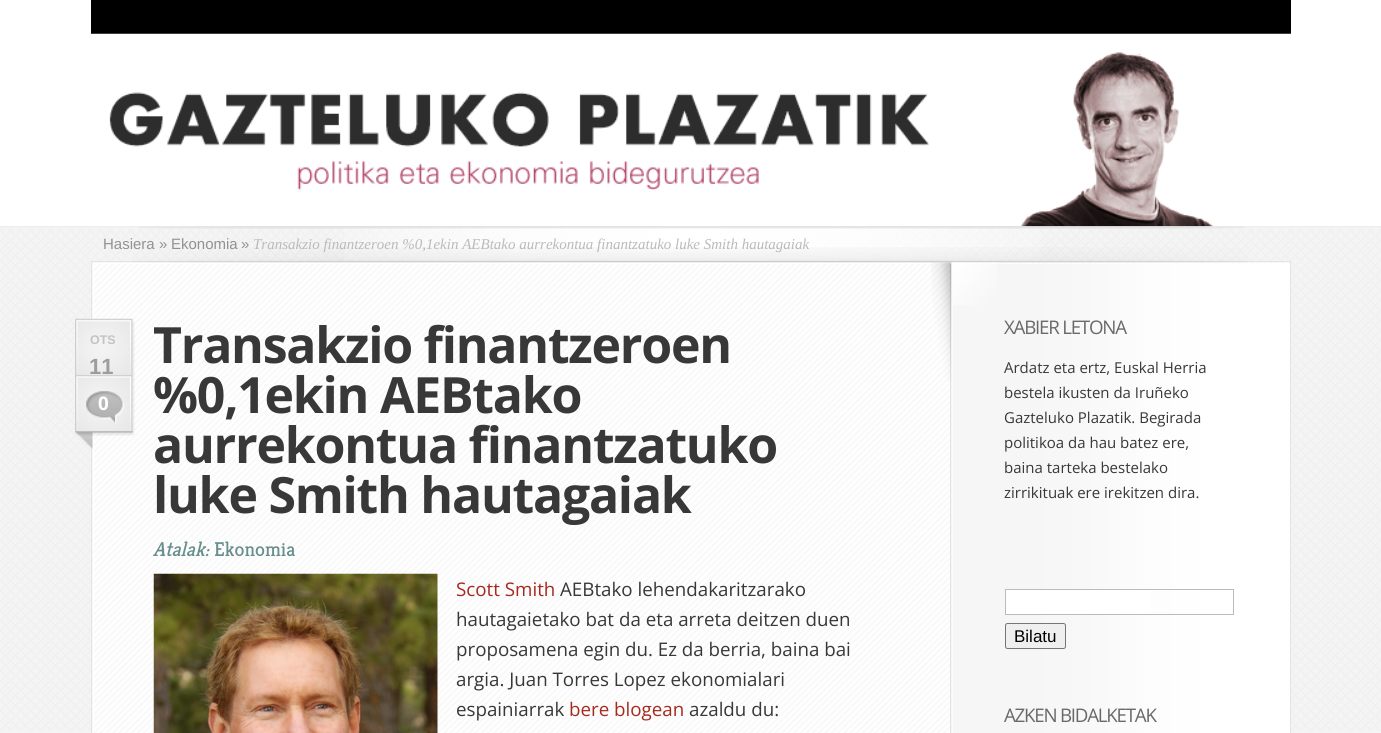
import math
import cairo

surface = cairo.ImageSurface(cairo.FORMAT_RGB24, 1381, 733)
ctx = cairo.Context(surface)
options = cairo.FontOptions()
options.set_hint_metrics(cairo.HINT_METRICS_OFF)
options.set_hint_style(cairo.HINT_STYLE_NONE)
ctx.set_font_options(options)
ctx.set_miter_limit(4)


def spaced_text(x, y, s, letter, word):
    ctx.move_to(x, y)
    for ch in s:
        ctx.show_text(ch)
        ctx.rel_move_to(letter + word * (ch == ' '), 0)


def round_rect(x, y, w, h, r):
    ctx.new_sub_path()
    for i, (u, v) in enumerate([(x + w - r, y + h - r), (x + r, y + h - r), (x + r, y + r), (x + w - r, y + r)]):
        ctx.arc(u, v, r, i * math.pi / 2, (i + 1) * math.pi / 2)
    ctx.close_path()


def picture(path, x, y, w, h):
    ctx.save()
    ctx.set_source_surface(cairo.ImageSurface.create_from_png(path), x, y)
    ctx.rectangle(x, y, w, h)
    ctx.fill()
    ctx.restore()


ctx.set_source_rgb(0.957, 0.957, 0.957)
ctx.paint()
picture("img1.png", 0, 229, 1381, 502)
picture("img2.png", 344, 226, 696, 37)
ctx.set_source_rgb(1, 1, 1)
ctx.rectangle(0, 0, 1381, 226)
ctx.fill()
ctx.set_source_rgb(0, 0, 0)
ctx.rectangle(91, 0, 1200, 34)
ctx.fill()
picture("img3.png", 91, 33, 1200, 194)
picture("img4.png", 0, 226, 1381, 2)
picture("img5.png", 139, 226, 1105, 3)
ctx.select_font_face("Liberation Sans")
ctx.set_font_size(15)
ctx.set_source_rgb(0.573, 0.573, 0.573)
ctx.move_to(103, 249)
ctx.show_text("Hasiera")
ctx.move_to(159, 249)
ctx.show_text("»")
ctx.move_to(171, 249)
ctx.show_text("Ekonomia")
ctx.move_to(241, 249)
ctx.show_text("»")
ctx.select_font_face("Liberation Serif", cairo.FONT_SLANT_ITALIC)
ctx.set_source_rgb(0.737, 0.733, 0.733)
ctx.move_to(253, 249)
ctx.show_text("Transakzio finantzeroen %0,1ekin AEBtako aurrekontua finantzatuko luke Smith hautagaiak")
ctx.rectangle(91.5, 261.5, 1199, 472)
ctx.set_source_rgb(0.894, 0.894, 0.894)
ctx.set_line_width(1)
ctx.stroke()
picture("img7.png", 92, 262, 1198, 471)
picture("img6.png", 133, 247, 1115, 16)
ctx.rectangle(93.5, 263.5, 1196, 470)
ctx.set_source_rgb(1, 1, 1)
ctx.stroke()
picture("img8.png", 950, 263, 339, 470)
picture("img9.png", 931, 262, 21, 120)
picture("img10.png", 952, 262, 45, 43)
picture("img11.png", 75, 318, 60, 131)
ctx.select_font_face("Liberation Sans", cairo.FONT_SLANT_NORMAL, cairo.FONT_WEIGHT_BOLD)
ctx.set_font_size(12.5)
ctx.set_source_rgb(0.765, 0.765, 0.765)
ctx.move_to(90, 344)
ctx.show_text("OTS")
ctx.set_font_size(22)
ctx.set_source_rgb(0.616, 0.616, 0.616)
ctx.move_to(89, 374)
ctx.show_text("11")
ctx.select_font_face("Open Sans", cairo.FONT_SLANT_NORMAL, cairo.FONT_WEIGHT_BOLD)
ctx.set_font_size(18.75)
ctx.set_source_rgb(1, 1, 1)
ctx.move_to(98, 410)
ctx.show_text("0")
ctx.set_font_size(50)
ctx.set_source_rgb(0.22, 0.22, 0.22)
spaced_text(153, 363, "Transakzio finantzeroen", -1.25, 0)
spaced_text(153, 413, "%0,1ekin AEBtako", -1.25, 0)
spaced_text(153, 463, "aurrekontua finantzatuko", -1.25, 0)
spaced_text(153, 513, "luke Smith hautagaiak", -1.25, 0)
ctx.select_font_face("Kreon", cairo.FONT_SLANT_ITALIC)
ctx.set_font_size(20)
ctx.set_source_rgb(0.404, 0.557, 0.553)
ctx.move_to(153, 556)
ctx.show_text("Atalak:")
ctx.select_font_face("Kreon")
ctx.move_to(214, 556)
ctx.show_text("Ekonomia")
picture("img12.png", 153, 573, 285, 160)
ctx.select_font_face("Open Sans")
ctx.set_font_size(18.75)
ctx.set_source_rgb(0.651, 0.161, 0.114)
ctx.move_to(456, 596)
ctx.show_text("Scott Smith")
ctx.set_source_rgb(0.22, 0.22, 0.22)
ctx.move_to(560, 596)
ctx.show_text("AEBtako lehendakaritzarako")
ctx.move_to(456, 626)
ctx.show_text("hautagaietako bat da eta arreta deitzen duen")
ctx.move_to(456, 656)
ctx.show_text("proposamena egin du. Ez da berria, baina bai")
ctx.move_to(456, 686)
ctx.show_text("argia. Juan Torres Lopez ekonomialari")
ctx.move_to(456, 716)
ctx.show_text("espainiarrak")
ctx.set_source_rgb(0.651, 0.161, 0.114)
ctx.move_to(569, 716)
ctx.show_text("bere blogean")
ctx.set_source_rgb(0.22, 0.22, 0.22)
ctx.move_to(689, 716)
ctx.show_text("azaldu du:")
ctx.set_source_rgb(0.412, 0.412, 0.412)
spaced_text(1004, 334, "XABIER LETONA", -1.25, 0)
ctx.set_font_size(15)
ctx.set_source_rgb(0.22, 0.22, 0.22)
ctx.move_to(1004, 373)
ctx.show_text("Ardatz eta ertz, Euskal Herria")
ctx.move_to(1004, 398)
ctx.show_text("bestela ikusten da Iruñeko")
ctx.move_to(1004, 423)
ctx.show_text("Gazteluko Plazatik. Begirada")
ctx.move_to(1004, 448)
ctx.show_text("politikoa da hau batez ere,")
ctx.move_to(1004, 473)
ctx.show_text("baina tarteka bestelako")
ctx.move_to(1004, 498)
ctx.show_text("zirrikituak ere irekitzen dira.")
ctx.set_source_rgb(1, 1, 1)
ctx.rectangle(1006, 590, 145, 24)
ctx.fill()
ctx.rectangle(1005.5, 589.5, 228, 25)
ctx.set_source_rgb(0.733, 0.733, 0.733)
ctx.stroke()
ctx.set_source_rgb(0.937, 0.937, 0.937)
round_rect(1005.5, 623.5, 60, 25, 2)
ctx.fill_preserve()
ctx.set_source_rgb(0.463, 0.463, 0.463)
ctx.stroke()
ctx.select_font_face("Liberation Sans")
ctx.set_font_size(17)
ctx.set_source_rgb(0, 0, 0)
ctx.move_to(1014, 642)
ctx.show_text("Bilatu")
ctx.select_font_face("Open Sans")
ctx.set_font_size(18.75)
ctx.set_source_rgb(0.412, 0.412, 0.412)
spaced_text(1004, 722, "AZKEN BIDALKETAK", -1.25, 0)
surface.write_to_png("page.png")
